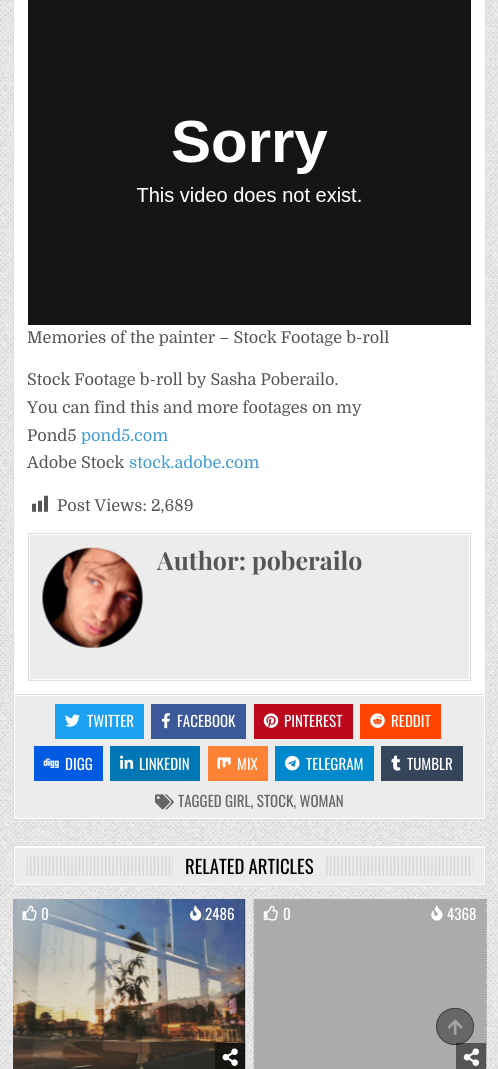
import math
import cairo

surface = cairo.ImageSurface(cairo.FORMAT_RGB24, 498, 1069)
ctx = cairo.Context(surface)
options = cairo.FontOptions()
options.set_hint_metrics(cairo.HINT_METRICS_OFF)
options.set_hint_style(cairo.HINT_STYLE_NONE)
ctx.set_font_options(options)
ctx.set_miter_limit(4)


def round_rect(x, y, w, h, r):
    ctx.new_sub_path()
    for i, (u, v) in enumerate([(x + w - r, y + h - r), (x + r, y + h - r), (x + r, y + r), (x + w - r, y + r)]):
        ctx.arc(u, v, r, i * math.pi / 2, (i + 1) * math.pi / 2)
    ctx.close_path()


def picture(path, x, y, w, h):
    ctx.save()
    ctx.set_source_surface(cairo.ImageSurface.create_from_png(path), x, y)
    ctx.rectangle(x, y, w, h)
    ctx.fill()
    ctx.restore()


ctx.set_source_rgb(1, 1, 1)
ctx.paint()
picture("img1.png", 0, 0, 498, 1069)
ctx.set_source_rgb(1, 1, 1)
ctx.rectangle(13.5, -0.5, 472, 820)
ctx.fill_preserve()
ctx.set_source_rgb(0.867, 0.867, 0.867)
ctx.set_line_width(1)
ctx.stroke()
picture("img2.png", 28, 0, 443, 325)
ctx.select_font_face("Domine")
ctx.set_font_size(16.25)
ctx.set_source_rgb(0.333, 0.333, 0.333)
ctx.move_to(27, 343)
ctx.show_text("Memories of the painter – Stock Footage b-roll")
ctx.move_to(27, 385)
ctx.show_text("Stock Footage b-roll by Sasha Poberailo.")
ctx.move_to(27, 413)
ctx.show_text("You can find this and more footages on my")
ctx.move_to(27, 441)
ctx.show_text("Pond5")
ctx.set_source_rgb(0.251, 0.608, 0.831)
ctx.move_to(81, 441)
ctx.show_text("pond5.com")
ctx.set_source_rgb(0.333, 0.333, 0.333)
ctx.move_to(27, 468)
ctx.show_text("Adobe Stock")
ctx.set_source_rgb(0.251, 0.608, 0.831)
ctx.move_to(129, 468)
ctx.show_text("stock.adobe.com")
picture("img3.png", 32, 495, 16, 17)
ctx.set_source_rgb(0.333, 0.333, 0.333)
ctx.move_to(57, 511)
ctx.show_text("Post Views: 2,689")
ctx.set_source_rgb(0.925, 0.925, 0.925)
ctx.rectangle(30, 535, 439, 144)
ctx.fill()
ctx.rectangle(28.5, 533.5, 442, 147)
ctx.set_source_rgb(0.867, 0.867, 0.867)
ctx.stroke()
picture("img4.png", 42, 547, 101, 101)
ctx.select_font_face("Playfair Display", cairo.FONT_SLANT_NORMAL, cairo.FONT_WEIGHT_BOLD)
ctx.set_font_size(25)
ctx.set_source_rgb(0.333, 0.333, 0.333)
ctx.move_to(157, 570)
ctx.show_text("Author: poberailo")
ctx.set_source_rgb(0.925, 0.925, 0.925)
ctx.rectangle(15, 696, 469, 122)
ctx.fill()
ctx.set_source_rgb(0.867, 0.867, 0.867)
ctx.rectangle(15, 694, 469, 1)
ctx.fill()
ctx.set_source_rgb(0.114, 0.631, 0.949)
ctx.rectangle(55, 704, 89, 35)
ctx.fill()
picture("img5.png", 65, 714, 15, 13)
ctx.select_font_face("Oswald")
ctx.set_font_size(15)
ctx.set_source_rgb(1, 1, 1)
ctx.move_to(87, 727)
ctx.show_text("TWITTER")
ctx.set_source_rgb(0.231, 0.349, 0.596)
ctx.rectangle(151, 704, 95, 35)
ctx.fill()
picture("img6.png", 161, 713, 9, 16)
ctx.set_source_rgb(1, 1, 1)
ctx.move_to(177, 727)
ctx.show_text("FACEBOOK")
ctx.set_source_rgb(0.741, 0.031, 0.11)
ctx.rectangle(254, 704, 99, 35)
ctx.fill()
picture("img7.png", 263, 713, 16, 15)
ctx.set_source_rgb(1, 1, 1)
ctx.move_to(284, 727)
ctx.show_text("PINTEREST")
ctx.set_source_rgb(1, 0.271, 0)
ctx.rectangle(360, 704, 81, 35)
ctx.fill()
picture("img8.png", 370, 713, 15, 15)
ctx.set_source_rgb(1, 1, 1)
ctx.move_to(391, 727)
ctx.show_text("REDDIT")
ctx.set_source_rgb(0, 0.357, 0.886)
ctx.rectangle(34, 746, 69, 35)
ctx.fill()
picture("img9.png", 43, 758, 16, 10)
ctx.set_source_rgb(1, 1, 1)
ctx.move_to(65, 770)
ctx.show_text("DIGG")
ctx.set_source_rgb(0, 0.467, 0.71)
ctx.rectangle(110, 746, 90, 35)
ctx.fill()
picture("img10.png", 120, 755, 14, 14)
ctx.set_source_rgb(1, 1, 1)
ctx.move_to(139, 770)
ctx.show_text("LINKEDIN")
ctx.set_source_rgb(0.992, 0.51, 0.208)
ctx.rectangle(208, 746, 60, 35)
ctx.fill()
picture("img11.png", 217, 757, 14, 12)
ctx.set_source_rgb(1, 1, 1)
ctx.move_to(237, 770)
ctx.show_text("MIX")
ctx.set_source_rgb(0, 0.533, 0.8)
ctx.rectangle(275, 746, 99, 35)
ctx.fill()
picture("img12.png", 285, 755, 15, 16)
ctx.set_source_rgb(1, 1, 1)
ctx.move_to(306, 770)
ctx.show_text("TELEGRAM")
ctx.set_source_rgb(0.208, 0.275, 0.361)
ctx.rectangle(381, 746, 82, 35)
ctx.fill()
picture("img13.png", 391, 755, 10, 16)
ctx.set_source_rgb(1, 1, 1)
ctx.move_to(407, 770)
ctx.show_text("TUMBLR")
picture("img14.png", 155, 794, 19, 16)
ctx.set_source_rgb(0.4, 0.4, 0.4)
ctx.move_to(178, 807)
ctx.show_text("TAGGED GIRL, STOCK, WOMAN")
ctx.set_source_rgb(0.925, 0.925, 0.925)
ctx.rectangle(15, 848, 469, 36)
ctx.fill()
ctx.save()
ctx.rectangle(14, 846, 471, 39)
ctx.clip()
ctx.set_source_rgb(1, 1, 1)
ctx.set_fill_rule(cairo.FILL_RULE_EVEN_ODD)
ctx.new_path()
ctx.move_to(-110, 722)
ctx.line_to(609, 722)
ctx.line_to(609, 1009)
ctx.line_to(-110, 1009)
ctx.close_path()
ctx.move_to(12, 845)
ctx.line_to(484, 845)
ctx.line_to(484, 884)
ctx.line_to(12, 884)
ctx.close_path()
ctx.fill()
ctx.new_path()
ctx.move_to(-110, 722)
ctx.line_to(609, 722)
ctx.line_to(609, 1009)
ctx.line_to(-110, 1009)
ctx.close_path()
ctx.move_to(15, 848)
ctx.line_to(486, 848)
ctx.line_to(486, 886)
ctx.line_to(15, 886)
ctx.close_path()
ctx.fill()
ctx.restore()
ctx.rectangle(13.5, 845.5, 472, 40)
ctx.set_source_rgb(0.867, 0.867, 0.867)
ctx.stroke()
picture("img15.png", 26, 856, 447, 20)
ctx.set_source_rgb(0.925, 0.925, 0.925)
ctx.rectangle(173, 856, 151, 19)
ctx.fill()
ctx.set_font_size(18.75)
ctx.set_source_rgb(0, 0, 0)
ctx.move_to(185, 874)
ctx.show_text("RELATED ARTICLES")
ctx.set_source_rgb(0.118, 0.169, 0.204)
ctx.rectangle(244, 899, 1, 170)
ctx.fill()
picture("img16.png", 244, 899, 2, 169)
picture("img17.png", 13, 899, 233, 170)
picture("img18.png", 22, 905, 15, 16)
ctx.set_font_size(15)
ctx.set_source_rgb(1, 1, 1)
ctx.move_to(41, 920)
ctx.show_text("0")
picture("img19.png", 190, 905, 12, 16)
ctx.move_to(205, 920)
ctx.show_text("2486")
ctx.set_source_rgba(0, 0, 0, 0.5)
ctx.rectangle(215, 1043, 30, 26)
ctx.fill()
picture("img20.png", 222, 1048, 16, 18)
picture("img21.png", 253, 899, 234, 170)
picture("img22.png", 253, 899, 233, 170)
picture("img23.png", 263, 905, 15, 16)
ctx.set_source_rgb(1, 1, 1)
ctx.move_to(283, 920)
ctx.show_text("0")
picture("img24.png", 431, 905, 12, 16)
ctx.move_to(447, 920)
ctx.show_text("4368")
ctx.set_source_rgba(0, 0, 0, 0.5)
ctx.rectangle(456, 1043, 30, 26)
ctx.fill()
picture("img25.png", 463, 1048, 16, 18)
ctx.set_source_rgba(0, 0, 0, 0.4)
round_rect(436, 1008, 38, 37, 18.5)
ctx.fill()
round_rect(436.5, 1008.5, 37, 36, 18)
ctx.stroke()
picture("img26.png", 447, 1019, 16, 16)
surface.write_to_png("page.png")
